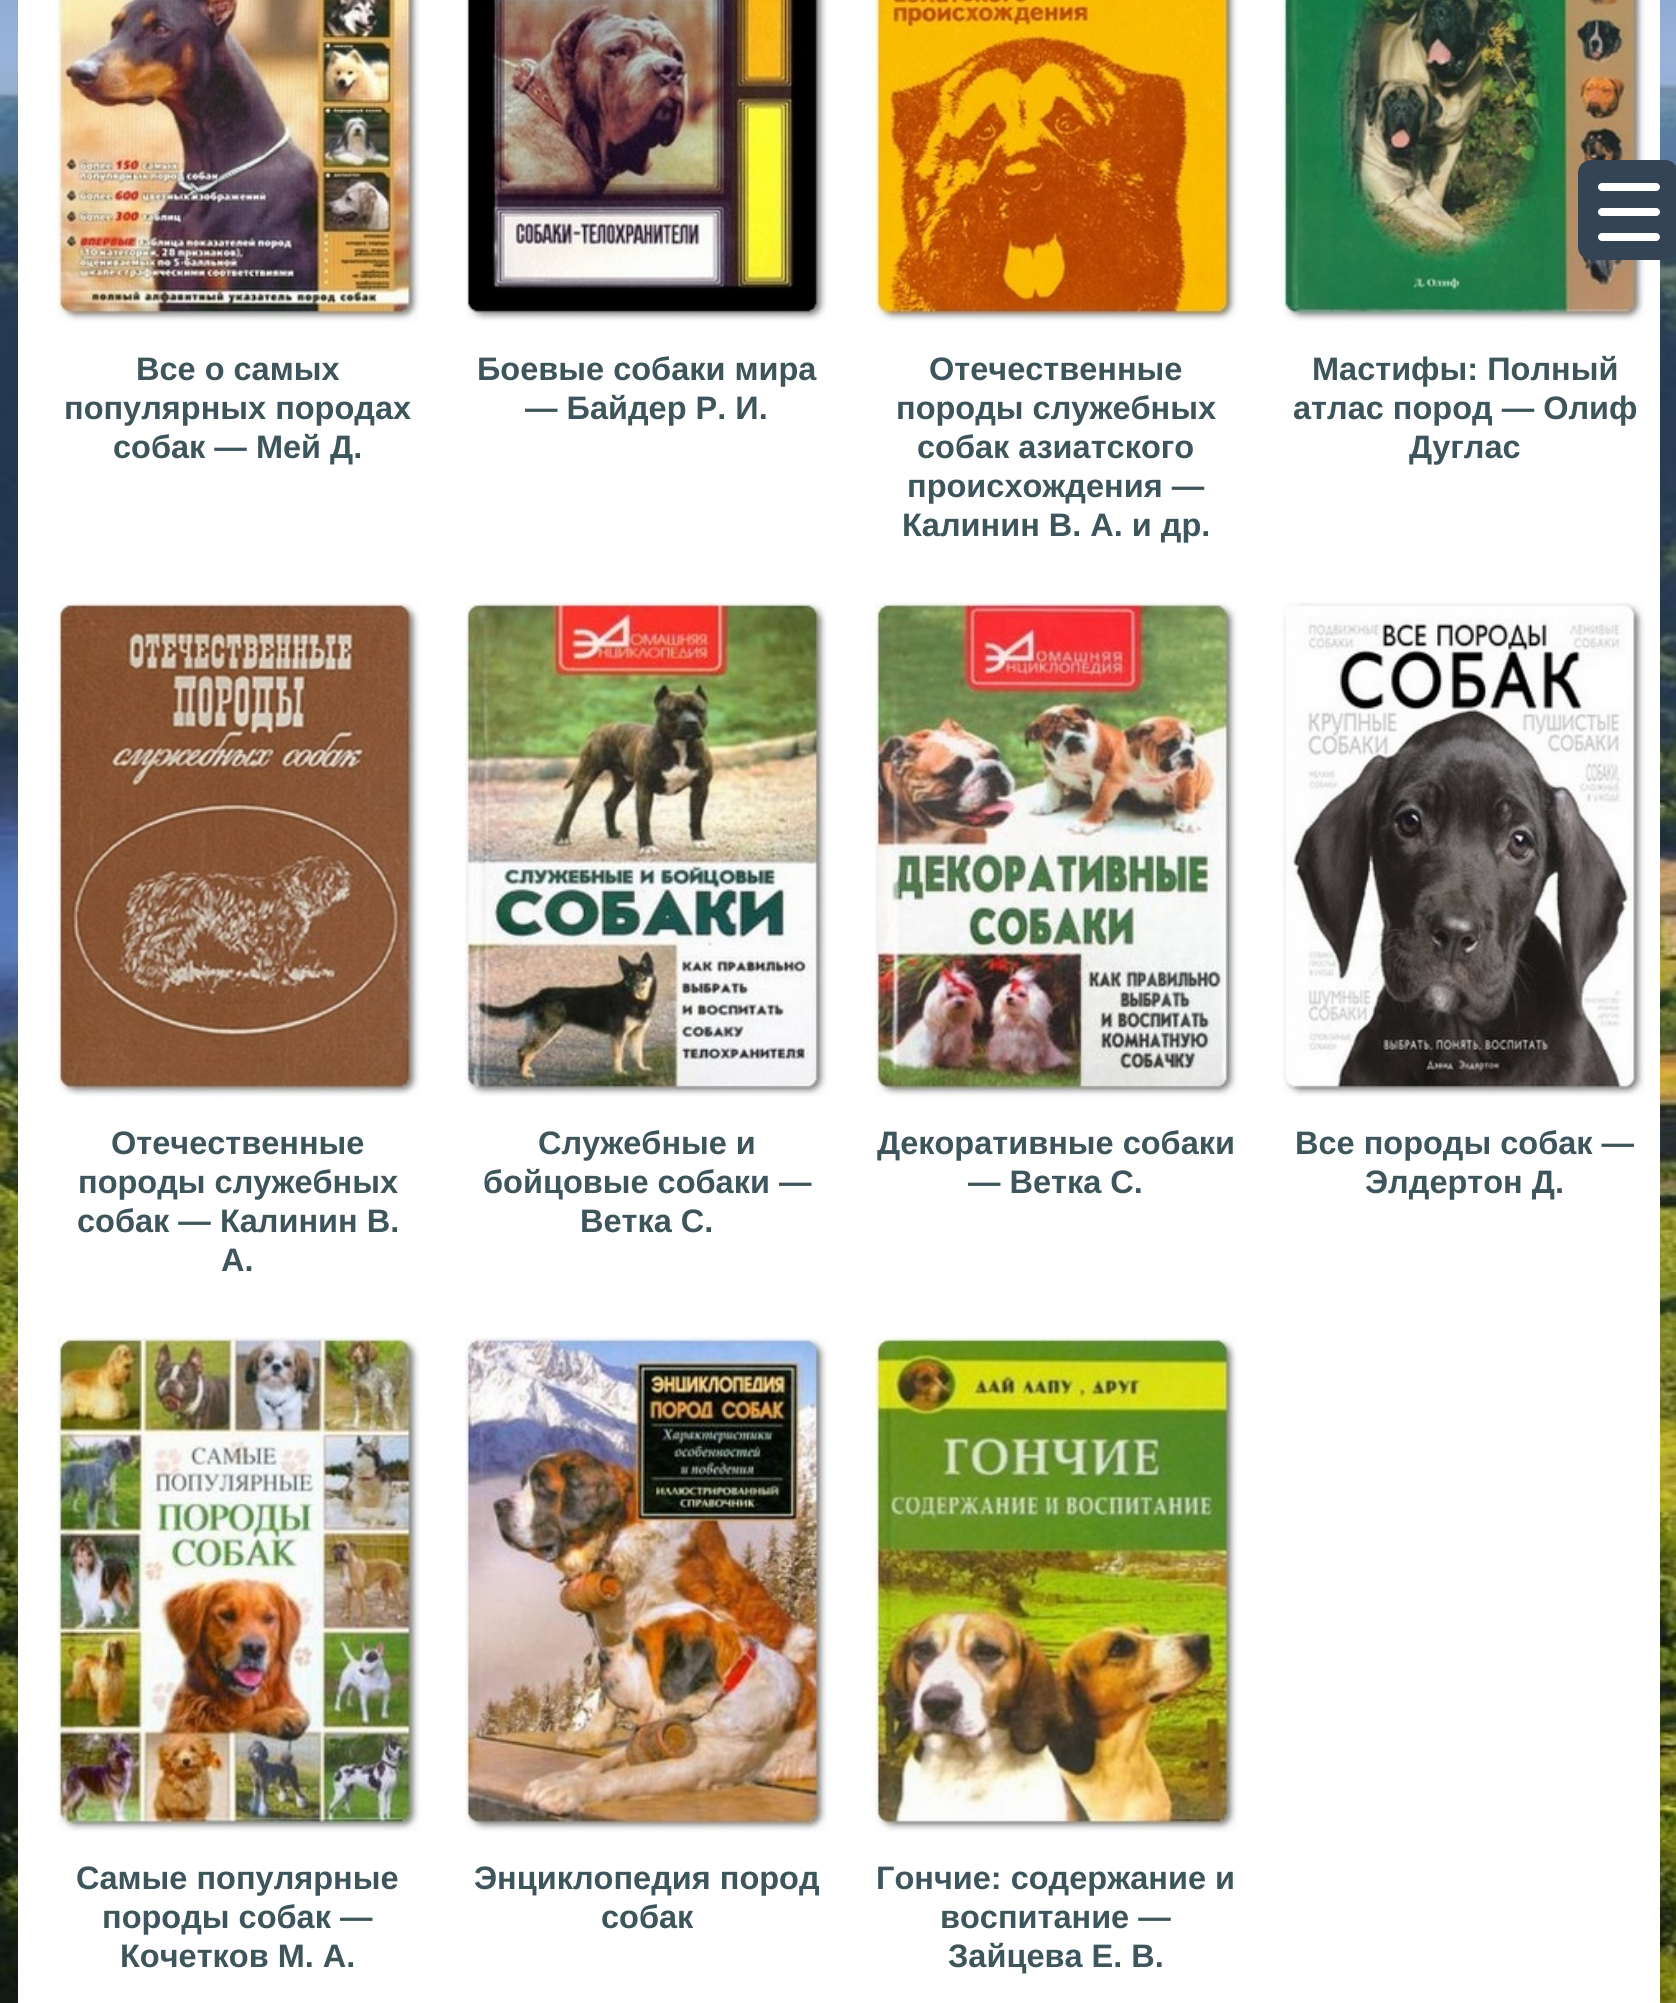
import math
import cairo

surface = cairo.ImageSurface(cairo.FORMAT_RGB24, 1676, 2003)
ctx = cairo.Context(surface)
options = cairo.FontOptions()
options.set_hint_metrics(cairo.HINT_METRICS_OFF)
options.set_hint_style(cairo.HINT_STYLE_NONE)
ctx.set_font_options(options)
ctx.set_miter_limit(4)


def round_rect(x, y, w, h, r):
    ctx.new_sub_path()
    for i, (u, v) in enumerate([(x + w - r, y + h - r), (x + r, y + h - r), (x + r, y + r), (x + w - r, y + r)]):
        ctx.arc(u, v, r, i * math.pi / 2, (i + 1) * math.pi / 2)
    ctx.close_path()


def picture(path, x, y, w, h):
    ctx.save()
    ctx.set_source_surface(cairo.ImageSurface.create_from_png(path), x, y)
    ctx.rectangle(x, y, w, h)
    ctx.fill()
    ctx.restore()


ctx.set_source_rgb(1, 1, 1)
ctx.paint()
picture("img1.png", 0, 0, 1676, 2003)
ctx.set_source_rgb(1, 1, 1)
ctx.rectangle(18, 0, 1642, 2003)
ctx.fill()
picture("img5.png", 1282, 0, 363, 323)
ctx.set_source_rgb(0.204, 0.267, 0.329)
round_rect(1578, 160, 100, 100, 13)
ctx.fill()
ctx.set_source_rgb(1, 1, 1)
round_rect(1598, 208, 62, 8, 4)
ctx.fill()
round_rect(1598, 183, 62, 8, 4)
ctx.fill()
round_rect(1598, 233, 62, 8, 4)
ctx.fill()
picture("img2.png", 57, 0, 363, 323)
ctx.select_font_face("Liberation Sans", cairo.FONT_SLANT_NORMAL, cairo.FONT_WEIGHT_BOLD)
ctx.set_font_size(32.5)
ctx.set_source_rgb(0.243, 0.333, 0.357)
ctx.move_to(136, 380)
ctx.show_text("Все о самых")
ctx.move_to(64, 419)
ctx.show_text("популярных породах")
ctx.move_to(113, 458)
ctx.show_text("собак — Мей Д.")
picture("img3.png", 465, 0, 362, 321)
ctx.move_to(477, 380)
ctx.show_text("Боевые собаки мира")
ctx.move_to(525, 419)
ctx.show_text("— Байдер Р. И.")
picture("img4.png", 875, 0, 363, 323)
ctx.move_to(929, 380)
ctx.show_text("Отечественные")
ctx.move_to(896, 419)
ctx.show_text("породы служебных")
ctx.move_to(917, 458)
ctx.show_text("собак азиатского")
ctx.move_to(907, 497)
ctx.show_text("происхождения —")
ctx.move_to(902, 536)
ctx.show_text("Калинин В. А. и др.")
ctx.move_to(1312, 380)
ctx.show_text("Мастифы: Полный")
ctx.move_to(1293, 419)
ctx.show_text("атлас пород — Олиф")
ctx.move_to(1409, 458)
ctx.show_text("Дуглас")
picture("img6.png", 57, 602, 363, 495)
ctx.move_to(111, 1154)
ctx.show_text("Отечественные")
ctx.move_to(78, 1193)
ctx.show_text("породы служебных")
ctx.move_to(77, 1232)
ctx.show_text("собак — Калинин В.")
ctx.move_to(221, 1271)
ctx.show_text("А.")
picture("img7.png", 465, 602, 363, 495)
ctx.move_to(538, 1154)
ctx.show_text("Служебные и")
ctx.move_to(483, 1193)
ctx.show_text("бойцовые собаки —")
ctx.move_to(580, 1232)
ctx.show_text("Ветка С.")
picture("img8.png", 875, 602, 363, 496)
ctx.move_to(877, 1154)
ctx.show_text("Декоративные собаки")
ctx.move_to(968, 1193)
ctx.show_text("— Ветка С.")
picture("img9.png", 1282, 602, 363, 494)
ctx.move_to(1295, 1154)
ctx.show_text("Все породы собак —")
ctx.move_to(1365, 1193)
ctx.show_text("Элдертон Д.")
picture("img10.png", 57, 1337, 363, 496)
ctx.move_to(76, 1889)
ctx.show_text("Самые популярные")
ctx.move_to(102, 1928)
ctx.show_text("породы собак —")
ctx.move_to(120, 1967)
ctx.show_text("Кочетков М. А.")
picture("img11.png", 465, 1337, 363, 495)
ctx.move_to(474, 1889)
ctx.show_text("Энциклопедия пород")
ctx.move_to(601, 1928)
ctx.show_text("собак")
picture("img12.png", 875, 1337, 363, 496)
ctx.move_to(876, 1889)
ctx.show_text("Гончие: содержание и")
ctx.move_to(940, 1928)
ctx.show_text("воспитание —")
ctx.move_to(948, 1967)
ctx.show_text("Зайцева Е. В.")
surface.write_to_png("page.png")
